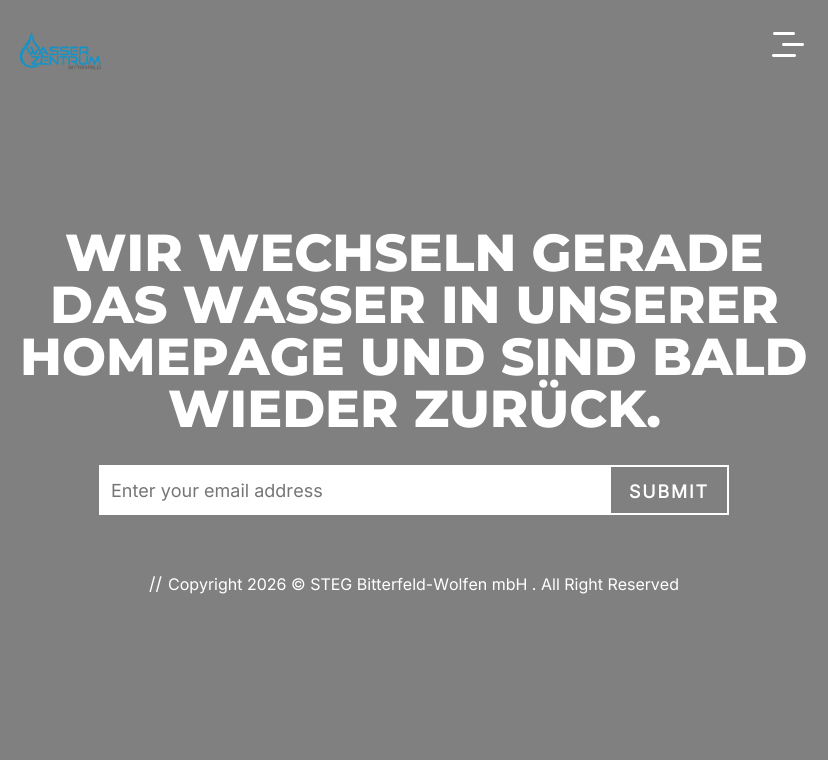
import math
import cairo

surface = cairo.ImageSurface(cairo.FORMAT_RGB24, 828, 760)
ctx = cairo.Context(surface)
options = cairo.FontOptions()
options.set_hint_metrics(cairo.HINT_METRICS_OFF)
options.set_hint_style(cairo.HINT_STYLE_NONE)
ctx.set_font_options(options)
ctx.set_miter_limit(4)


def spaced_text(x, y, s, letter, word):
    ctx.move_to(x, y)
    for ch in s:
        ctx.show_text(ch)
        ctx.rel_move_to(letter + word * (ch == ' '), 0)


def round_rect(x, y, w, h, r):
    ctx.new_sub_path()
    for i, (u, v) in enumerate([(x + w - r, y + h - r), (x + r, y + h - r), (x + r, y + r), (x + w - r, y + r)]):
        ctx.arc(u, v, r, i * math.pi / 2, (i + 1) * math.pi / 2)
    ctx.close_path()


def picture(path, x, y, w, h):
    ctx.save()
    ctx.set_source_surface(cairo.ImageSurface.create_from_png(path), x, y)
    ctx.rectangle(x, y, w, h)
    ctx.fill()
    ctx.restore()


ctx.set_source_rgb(0.502, 0.502, 0.502)
ctx.paint()
picture("img1.png", 20, 30, 81, 40)
ctx.set_source_rgb(1, 1, 1)
round_rect(773, 32, 22, 3, 1.5)
ctx.fill()
round_rect(782, 43, 22, 3, 1.5)
ctx.fill()
round_rect(772, 54, 24, 3, 1.5)
ctx.fill()
ctx.select_font_face("Montserrat Thin")
ctx.set_font_size(52)
ctx.move_to(65, 271)
ctx.show_text("WIR WECHSELN GERADE")
ctx.move_to(50, 323)
ctx.show_text("DAS WASSER IN UNSERER")
ctx.move_to(20, 375)
ctx.show_text("HOMEPAGE UND SIND BALD")
ctx.move_to(168, 427)
ctx.show_text("WIEDER ZURÜCK.")
ctx.rectangle(99, 465, 510, 50)
ctx.fill()
ctx.select_font_face("Inter")
ctx.set_font_size(18)
ctx.set_source_rgb(0.459, 0.459, 0.459)
ctx.move_to(111, 497)
ctx.show_text("Enter your email address")
ctx.rectangle(610, 466, 118, 48)
ctx.set_source_rgb(1, 1, 1)
ctx.stroke()
ctx.select_font_face("Inter", cairo.FONT_SLANT_NORMAL, cairo.FONT_WEIGHT_BOLD)
spaced_text(629, 498, "SUBMIT", 1.75, 0)
ctx.select_font_face("Inter")
ctx.move_to(149, 590)
ctx.show_text("//")
ctx.set_font_size(16)
ctx.move_to(168, 590)
ctx.show_text("Copyright 2026 © STEG Bitterfeld-Wolfen mbH . All Right Reserved")
surface.write_to_png("page.png")
